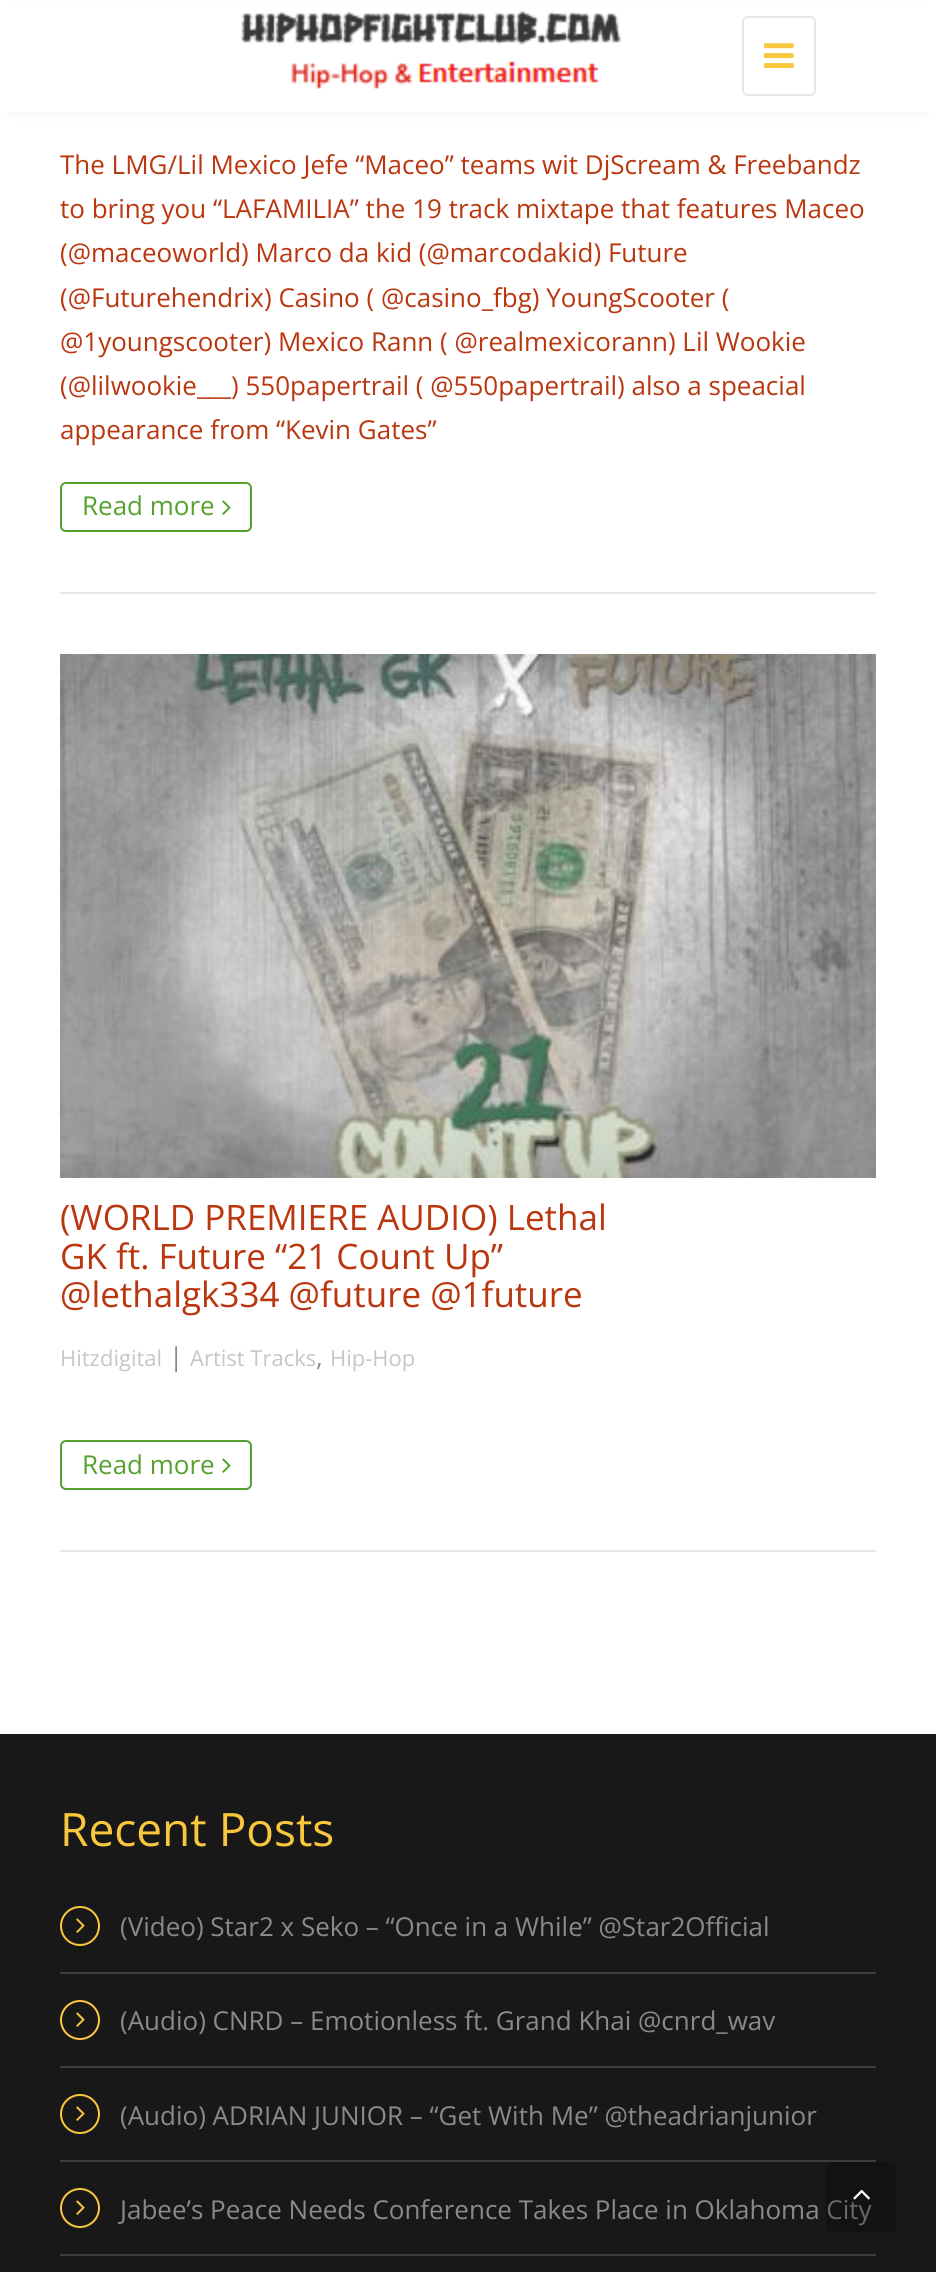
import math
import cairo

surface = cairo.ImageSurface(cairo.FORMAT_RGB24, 936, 2272)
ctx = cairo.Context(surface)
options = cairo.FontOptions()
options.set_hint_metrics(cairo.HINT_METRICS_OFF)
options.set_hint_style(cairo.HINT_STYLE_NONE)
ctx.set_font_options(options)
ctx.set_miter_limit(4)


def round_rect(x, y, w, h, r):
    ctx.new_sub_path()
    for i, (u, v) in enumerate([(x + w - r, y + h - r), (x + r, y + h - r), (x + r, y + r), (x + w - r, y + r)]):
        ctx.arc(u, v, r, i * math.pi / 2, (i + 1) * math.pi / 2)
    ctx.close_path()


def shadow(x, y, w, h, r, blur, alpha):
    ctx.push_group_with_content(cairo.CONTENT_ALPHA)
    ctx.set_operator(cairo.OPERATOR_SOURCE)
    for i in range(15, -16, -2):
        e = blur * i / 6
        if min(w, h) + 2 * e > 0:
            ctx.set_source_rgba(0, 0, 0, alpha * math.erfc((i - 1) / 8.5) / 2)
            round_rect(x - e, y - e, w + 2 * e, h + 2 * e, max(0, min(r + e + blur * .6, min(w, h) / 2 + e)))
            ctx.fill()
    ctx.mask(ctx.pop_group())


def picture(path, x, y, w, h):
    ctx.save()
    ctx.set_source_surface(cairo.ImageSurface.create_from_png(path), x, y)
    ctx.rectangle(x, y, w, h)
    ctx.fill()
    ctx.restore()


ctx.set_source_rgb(1, 1, 1)
ctx.paint()
ctx.set_source_rgb(0, 0, 0)
shadow(8, 12, 920, 96, 0, 9, 0.07)
ctx.set_source_rgb(1, 1, 1)
ctx.rectangle(0, 2, 936, 110)
ctx.fill()
picture("img1.png", 241, 11, 380, 78)
round_rect(743, 17, 72, 78, 5)
ctx.set_source_rgb(0.906, 0.906, 0.906)
ctx.stroke()
picture("img2.png", 764, 43, 30, 25)
ctx.rectangle(60, 592, 816, 2)
ctx.fill()
ctx.select_font_face("Open Sans")
ctx.set_font_size(26)
ctx.set_source_rgb(0.729, 0.212, 0.055)
ctx.move_to(60, 174)
ctx.show_text("The LMG/Lil Mexico Jefe “Maceo” teams wit DjScream & Freebandz")
ctx.move_to(60, 218)
ctx.show_text("to bring you “LAFAMILIA” the 19 track mixtape that features Maceo")
ctx.move_to(60, 262)
ctx.show_text("(@maceoworld) Marco da kid (@marcodakid) Future")
ctx.move_to(60, 307)
ctx.show_text("(@Futurehendrix) Casino ( @casino_fbg) YoungScooter (")
ctx.move_to(60, 351)
ctx.show_text("@1youngscooter) Mexico Rann ( @realmexicorann) Lil Wookie")
ctx.move_to(60, 395)
ctx.show_text("(@lilwookie___) 550papertrail ( @550papertrail) also a speacial")
ctx.move_to(60, 439)
ctx.show_text("appearance from “Kevin Gates”")
round_rect(61, 483, 190, 48, 5)
ctx.set_source_rgb(0.337, 0.627, 0.18)
ctx.stroke()
ctx.move_to(82, 515)
ctx.show_text("Read more")
picture("img3.png", 222, 500, 9, 15)
ctx.set_source_rgb(0.906, 0.906, 0.906)
ctx.rectangle(60, 1550, 816, 2)
ctx.fill()
picture("img4.png", 60, 654, 816, 524)
ctx.set_font_size(35)
ctx.set_source_rgb(0.729, 0.212, 0.055)
ctx.move_to(60, 1230)
ctx.show_text("(WORLD PREMIERE AUDIO) Lethal")
ctx.move_to(60, 1269)
ctx.show_text("GK ft. Future “21 Count Up”")
ctx.move_to(60, 1307)
ctx.show_text("@lethalgk334 @future @1future")
ctx.set_font_size(22)
ctx.set_source_rgb(0.776, 0.776, 0.776)
ctx.move_to(60, 1366)
ctx.show_text("Hitzdigital")
ctx.set_font_size(26)
ctx.set_source_rgb(0.541, 0.541, 0.541)
ctx.move_to(169, 1366)
ctx.show_text("|")
ctx.set_font_size(22)
ctx.set_source_rgb(0.776, 0.776, 0.776)
ctx.move_to(190, 1366)
ctx.show_text("Artist Tracks")
ctx.set_font_size(26)
ctx.set_source_rgb(0.541, 0.541, 0.541)
ctx.move_to(316, 1366)
ctx.show_text(",")
ctx.set_font_size(22)
ctx.set_source_rgb(0.776, 0.776, 0.776)
ctx.move_to(330, 1366)
ctx.show_text("Hip-Hop")
round_rect(61, 1441, 190, 48, 5)
ctx.set_source_rgb(0.337, 0.627, 0.18)
ctx.stroke()
ctx.set_font_size(26)
ctx.move_to(82, 1474)
ctx.show_text("Read more")
picture("img3.png", 222, 1458, 9, 15)
ctx.set_source_rgb(0.094, 0.094, 0.094)
ctx.rectangle(0, 1734, 936, 538)
ctx.fill()
ctx.set_font_size(46)
ctx.set_source_rgb(0.976, 0.78, 0.239)
ctx.move_to(60, 1846)
ctx.show_text("Recent Posts")
ctx.set_source_rgb(0.235, 0.235, 0.235)
ctx.rectangle(60, 1972, 816, 2)
ctx.fill()
ctx.arc(80, 1926, 19, 0, 2 * math.pi)
ctx.set_source_rgb(0.976, 0.78, 0.239)
ctx.stroke()
picture("img5.png", 76, 1918, 9, 15)
ctx.set_font_size(26)
ctx.set_source_rgb(0.541, 0.541, 0.541)
ctx.move_to(120, 1936)
ctx.show_text("(Video) Star2 x Seko – “Once in a While” @Star2Official")
ctx.set_source_rgb(0.235, 0.235, 0.235)
ctx.rectangle(60, 2066, 816, 2)
ctx.fill()
ctx.arc(80, 2020, 19, 0, 2 * math.pi)
ctx.set_source_rgb(0.976, 0.78, 0.239)
ctx.stroke()
picture("img5.png", 76, 2012, 9, 15)
ctx.set_source_rgb(0.541, 0.541, 0.541)
ctx.move_to(120, 2030)
ctx.show_text("(Audio) CNRD – Emotionless ft. Grand Khai @cnrd_wav")
ctx.set_source_rgb(0.235, 0.235, 0.235)
ctx.rectangle(60, 2160, 816, 2)
ctx.fill()
ctx.arc(80, 2114, 19, 0, 2 * math.pi)
ctx.set_source_rgb(0.976, 0.78, 0.239)
ctx.stroke()
picture("img5.png", 76, 2106, 9, 15)
ctx.set_source_rgb(0.541, 0.541, 0.541)
ctx.move_to(120, 2125)
ctx.show_text("(Audio) ADRIAN JUNIOR – “Get With Me” @theadrianjunior")
ctx.set_source_rgb(0.235, 0.235, 0.235)
ctx.rectangle(60, 2254, 816, 2)
ctx.fill()
ctx.arc(80, 2208, 19, 0, 2 * math.pi)
ctx.set_source_rgb(0.976, 0.78, 0.239)
ctx.stroke()
picture("img5.png", 76, 2200, 9, 15)
ctx.set_source_rgb(0.541, 0.541, 0.541)
ctx.move_to(120, 2219)
ctx.show_text("Jabee’s Peace Needs Conference Takes Place in Oklahoma City")
ctx.set_source_rgba(0, 0, 0, 0.25)
round_rect(826, 2162, 70, 70, 6)
ctx.fill()
picture("img6.png", 853, 2189, 17, 11)
surface.write_to_png("page.png")
